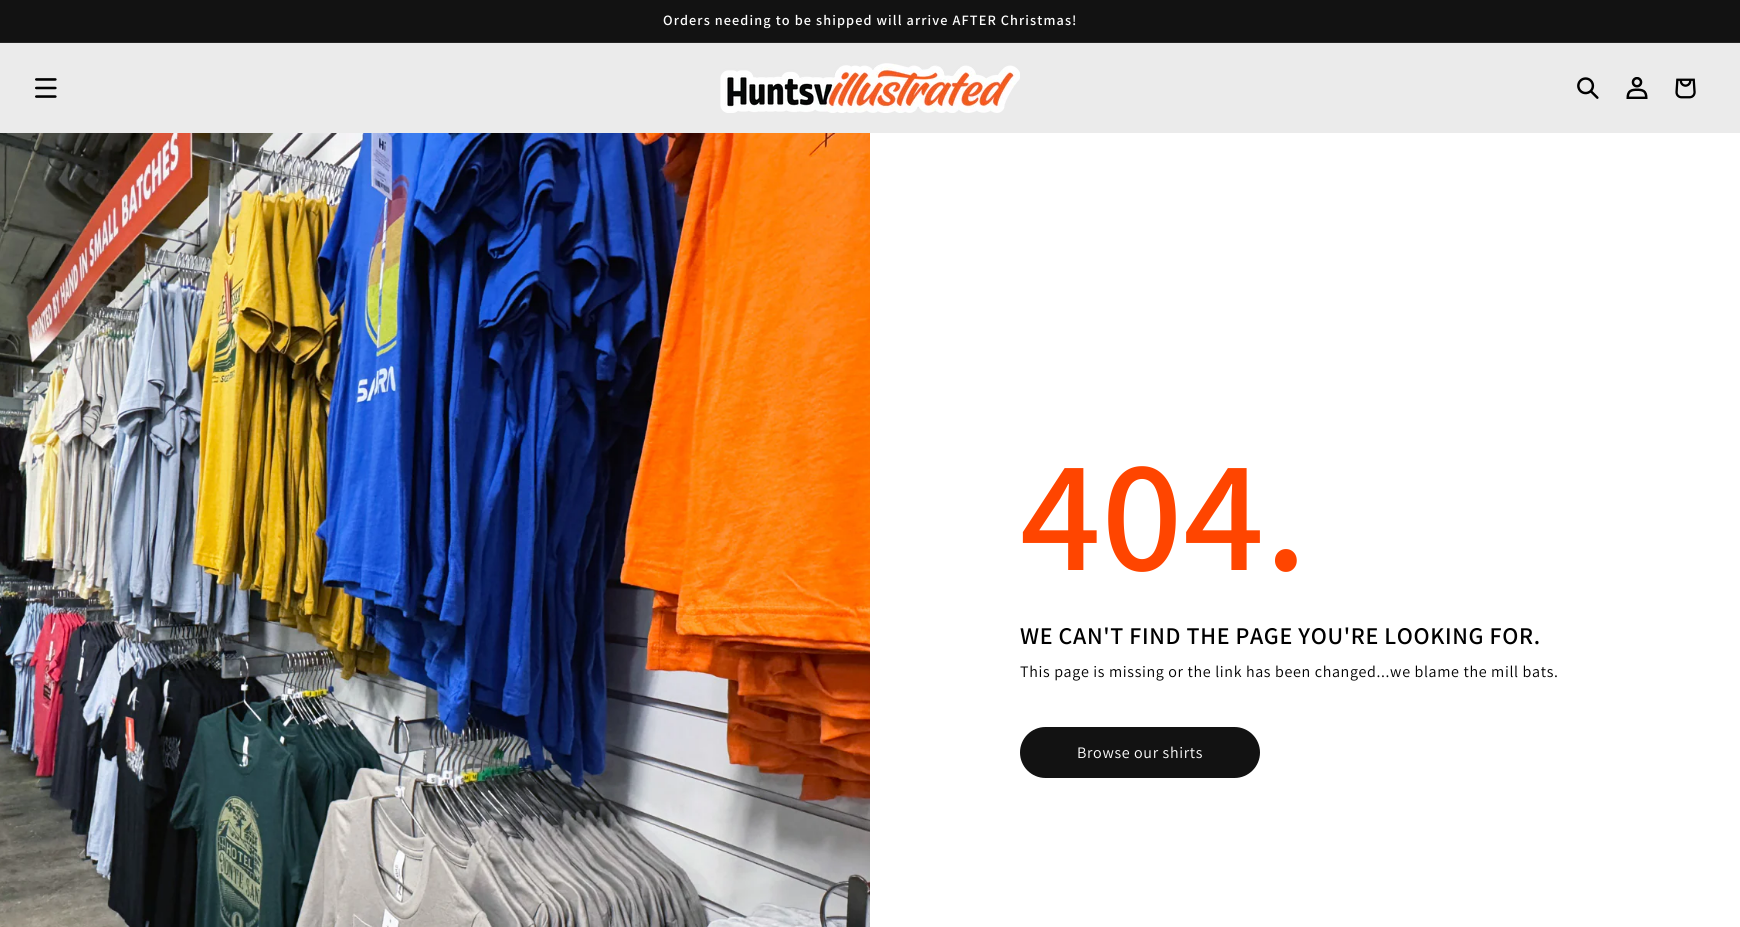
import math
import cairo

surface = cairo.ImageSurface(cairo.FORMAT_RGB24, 1740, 927)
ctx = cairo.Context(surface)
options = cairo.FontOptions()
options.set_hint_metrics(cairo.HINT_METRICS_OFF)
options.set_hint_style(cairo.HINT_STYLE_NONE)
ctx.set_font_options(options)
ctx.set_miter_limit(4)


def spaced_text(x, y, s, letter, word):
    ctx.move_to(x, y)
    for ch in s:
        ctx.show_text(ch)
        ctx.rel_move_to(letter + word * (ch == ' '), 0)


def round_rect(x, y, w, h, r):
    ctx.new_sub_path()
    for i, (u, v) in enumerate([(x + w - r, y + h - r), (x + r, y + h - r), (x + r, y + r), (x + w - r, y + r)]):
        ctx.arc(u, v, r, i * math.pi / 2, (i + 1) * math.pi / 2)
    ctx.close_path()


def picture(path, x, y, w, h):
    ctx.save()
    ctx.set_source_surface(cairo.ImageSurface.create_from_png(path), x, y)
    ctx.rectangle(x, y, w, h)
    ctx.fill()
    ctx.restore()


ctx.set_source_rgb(1, 1, 1)
ctx.paint()
ctx.set_source_rgb(0.071, 0.071, 0.071)
ctx.rectangle(0, 0, 1740, 42)
ctx.fill()
ctx.set_source_rgb(0.145, 0.145, 0.145)
ctx.rectangle(0, 42, 1740, 1)
ctx.fill()
ctx.select_font_face("Assistant SemiBold")
ctx.set_font_size(14.3)
ctx.set_source_rgb(1, 1, 1)
spaced_text(663, 25, "Orders needing to be shipped will arrive AFTER Christmas!", 1.1, 0)
ctx.set_source_rgb(0.918, 0.918, 0.918)
ctx.rectangle(0, 43, 1740, 90)
ctx.fill()
picture("img1.png", 35, 78, 22, 20)
picture("img2.png", 720, 63, 300, 50)
picture("img3.png", 1577, 77, 22, 22)
picture("img4.png", 1626, 77, 22, 22)
picture("img5.png", 1675, 78, 21, 21)
picture("img6.png", 0, 133, 870, 794)
ctx.set_font_size(160)
ctx.set_source_rgb(1, 0.271, 0)
spaced_text(1020, 570, "404.", 0.65, 0)
ctx.set_font_size(24)
ctx.set_source_rgb(0, 0, 0)
spaced_text(1020, 644, "WE CAN'T FIND THE PAGE YOU'RE LOOKING FOR.", 0.65, 0)
ctx.select_font_face("Assistant")
ctx.set_font_size(16)
spaced_text(1020, 677, "This page is missing or the link has been changed...we blame the mill bats.", 0.65, 0)
ctx.set_source_rgb(0.071, 0.071, 0.071)
round_rect(1020, 727, 240, 51, 25.5)
ctx.fill()
ctx.set_source_rgb(1, 1, 1)
spaced_text(1077, 758, "Browse our shirts", 0.65, 0)
surface.write_to_png("page.png")
